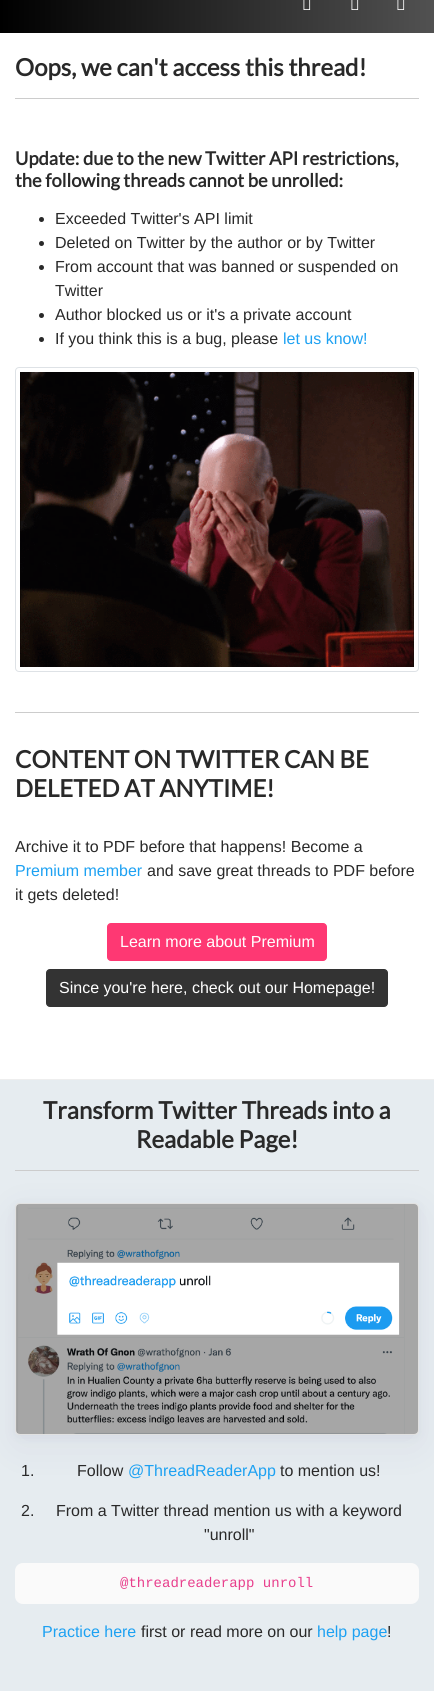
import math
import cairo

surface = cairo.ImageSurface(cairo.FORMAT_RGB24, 434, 1691)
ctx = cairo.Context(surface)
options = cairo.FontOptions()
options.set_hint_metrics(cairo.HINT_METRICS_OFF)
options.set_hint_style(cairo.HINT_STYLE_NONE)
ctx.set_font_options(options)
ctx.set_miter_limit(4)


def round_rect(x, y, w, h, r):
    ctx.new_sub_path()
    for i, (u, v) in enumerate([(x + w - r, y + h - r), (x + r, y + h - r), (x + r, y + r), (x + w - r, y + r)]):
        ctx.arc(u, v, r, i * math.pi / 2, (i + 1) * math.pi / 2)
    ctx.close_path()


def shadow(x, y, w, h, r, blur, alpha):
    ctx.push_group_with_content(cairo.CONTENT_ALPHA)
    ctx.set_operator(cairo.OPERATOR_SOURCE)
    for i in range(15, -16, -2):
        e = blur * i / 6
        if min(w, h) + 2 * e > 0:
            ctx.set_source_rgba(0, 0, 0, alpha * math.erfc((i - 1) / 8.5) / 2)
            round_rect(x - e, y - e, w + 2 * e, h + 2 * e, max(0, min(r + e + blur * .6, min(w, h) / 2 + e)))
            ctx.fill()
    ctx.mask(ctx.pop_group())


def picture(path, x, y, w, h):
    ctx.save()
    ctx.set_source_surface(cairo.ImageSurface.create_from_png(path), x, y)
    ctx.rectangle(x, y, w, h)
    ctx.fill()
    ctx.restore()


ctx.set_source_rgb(1, 1, 1)
ctx.paint()
gradient = cairo.LinearGradient(0, 4, 434, 4)
gradient.add_color_stop_rgba(0, 0, 0, 0, 1)
gradient.add_color_stop_rgba(1, 0.318, 0.318, 0.318, 1)
ctx.set_source(gradient)
ctx.rectangle(0, 0, 434, 33)
ctx.fill()
picture("img1.png", 303, 0, 8, 10)
picture("img2.png", 351, 0, 8, 10)
picture("img3.png", 397, 0, 8, 10)
ctx.set_source_rgb(0.8, 0.8, 0.8)
ctx.rectangle(15, 98, 404, 1)
ctx.fill()
ctx.select_font_face("Lato", cairo.FONT_SLANT_NORMAL, cairo.FONT_WEIGHT_BOLD)
ctx.set_font_size(24)
ctx.set_source_rgb(0.161, 0.161, 0.161)
ctx.move_to(15, 76)
ctx.show_text("Oops, we can't access this thread!")
ctx.set_font_size(18.4)
ctx.move_to(15, 165)
ctx.show_text("Update: due to the new Twitter API restrictions,")
ctx.move_to(15, 187)
ctx.show_text("the following threads cannot be unrolled:")
ctx.new_path()
ctx.arc(41.5, 219.5, 2.5, 0, 2 * math.pi)
ctx.fill()
ctx.select_font_face("Liberation Sans")
ctx.set_font_size(16)
ctx.move_to(55, 224)
ctx.show_text("Exceeded Twitter's API limit")
ctx.new_path()
ctx.arc(41.5, 243.5, 2.5, 0, 2 * math.pi)
ctx.fill()
ctx.move_to(55, 248)
ctx.show_text("Deleted on Twitter by the author or by Twitter")
ctx.new_path()
ctx.arc(41.5, 267.5, 2.5, 0, 2 * math.pi)
ctx.fill()
ctx.move_to(55, 272)
ctx.show_text("From account that was banned or suspended on")
ctx.move_to(55, 296)
ctx.show_text("Twitter")
ctx.new_path()
ctx.arc(41.5, 315.5, 2.5, 0, 2 * math.pi)
ctx.fill()
ctx.move_to(55, 320)
ctx.show_text("Author blocked us or it's a private account")
ctx.new_path()
ctx.arc(41.5, 339.5, 2.5, 0, 2 * math.pi)
ctx.fill()
ctx.move_to(55, 344)
ctx.show_text("If you think this is a bug, please")
ctx.set_source_rgb(0.114, 0.631, 0.949)
ctx.move_to(283, 344)
ctx.show_text("let us know!")
round_rect(15.5, 367.5, 403, 304, 3.5)
ctx.set_source_rgb(0.871, 0.886, 0.902)
ctx.set_line_width(1)
ctx.stroke()
picture("img4.png", 20, 372, 394, 295)
ctx.set_source_rgb(0.8, 0.8, 0.8)
ctx.rectangle(15, 712, 404, 1)
ctx.fill()
ctx.select_font_face("Lato", cairo.FONT_SLANT_NORMAL, cairo.FONT_WEIGHT_BOLD)
ctx.set_font_size(24)
ctx.set_source_rgb(0.161, 0.161, 0.161)
ctx.move_to(15, 768)
ctx.show_text("CONTENT ON TWITTER CAN BE")
ctx.move_to(15, 797)
ctx.show_text("DELETED AT ANYTIME!")
ctx.select_font_face("Liberation Sans")
ctx.set_font_size(16)
ctx.move_to(15, 852)
ctx.show_text("Archive it to PDF before that happens! Become a")
ctx.set_source_rgb(0.114, 0.631, 0.949)
ctx.move_to(15, 876)
ctx.show_text("Premium member")
ctx.set_source_rgb(0.161, 0.161, 0.161)
ctx.move_to(147, 876)
ctx.show_text("and save great threads to PDF before")
ctx.move_to(15, 900)
ctx.show_text("it gets deleted!")
ctx.set_source_rgb(0.996, 0.22, 0.451)
round_rect(107.5, 923.5, 219, 37, 3.5)
ctx.fill_preserve()
ctx.stroke()
ctx.set_source_rgb(1, 1, 1)
ctx.move_to(120, 947)
ctx.show_text("Learn more about Premium")
ctx.set_source_rgb(0.2, 0.2, 0.2)
round_rect(46.5, 969.5, 341, 37, 3.5)
ctx.fill_preserve()
ctx.stroke()
ctx.set_source_rgb(1, 1, 1)
ctx.move_to(59, 993)
ctx.show_text("Since you're here, check out our Homepage!")
ctx.set_source_rgb(0.902, 0.925, 0.941)
ctx.rectangle(0, 1080, 434, 611)
ctx.fill()
ctx.set_source_rgb(0.933, 0.933, 0.933)
ctx.rectangle(0, 1079, 434, 1)
ctx.fill()
ctx.set_source_rgb(0.8, 0.8, 0.8)
ctx.rectangle(15, 1170, 404, 1)
ctx.fill()
ctx.select_font_face("Lato", cairo.FONT_SLANT_NORMAL, cairo.FONT_WEIGHT_BOLD)
ctx.set_font_size(24)
ctx.set_source_rgb(0.161, 0.161, 0.161)
ctx.move_to(43, 1119)
ctx.show_text("Transform Twitter Threads into a")
ctx.move_to(136, 1148)
ctx.show_text("Readable Page!")
ctx.set_source_rgb(0.243, 0.224, 0.42)
shadow(15, 1205, 404, 232, 4, 4.5, 0.06)
shadow(15, 1213, 404, 232, 4, 20, 0.07)
ctx.set_source_rgb(1, 1, 1)
round_rect(15, 1203, 404, 232, 4)
ctx.fill()
round_rect(15.5, 1203.5, 403, 231, 3.5)
ctx.set_source_rgba(0, 0, 0, 0.12)
ctx.stroke()
picture("img5.png", 16, 1204, 402, 230)
ctx.select_font_face("Liberation Sans")
ctx.set_font_size(16)
ctx.set_source_rgb(0.161, 0.161, 0.161)
ctx.move_to(21, 1476)
ctx.show_text("1.")
ctx.move_to(77, 1476)
ctx.show_text("Follow")
ctx.set_source_rgb(0.114, 0.631, 0.949)
ctx.move_to(128, 1476)
ctx.show_text("@ThreadReaderApp")
ctx.set_source_rgb(0.161, 0.161, 0.161)
ctx.move_to(280, 1476)
ctx.show_text("to mention us!")
ctx.move_to(21, 1516)
ctx.show_text("2.")
ctx.move_to(56, 1516)
ctx.show_text("From a Twitter thread mention us with a keyword")
ctx.move_to(204, 1540)
ctx.show_text("\"unroll\"")
ctx.set_source_rgb(0.98, 0.98, 0.98)
round_rect(15, 1563, 404, 41, 8)
ctx.fill()
ctx.select_font_face("Liberation Mono")
ctx.set_font_size(14)
ctx.set_source_rgb(0.91, 0.243, 0.549)
ctx.move_to(120, 1587)
ctx.show_text("@threadreaderapp unroll")
ctx.select_font_face("Liberation Sans")
ctx.set_font_size(16)
ctx.set_source_rgb(0.114, 0.631, 0.949)
ctx.move_to(42, 1637)
ctx.show_text("Practice here")
ctx.set_source_rgb(0.161, 0.161, 0.161)
ctx.move_to(141, 1637)
ctx.show_text("first or read more on our")
ctx.set_source_rgb(0.114, 0.631, 0.949)
ctx.move_to(317, 1637)
ctx.show_text("help page")
ctx.set_source_rgb(0.161, 0.161, 0.161)
ctx.move_to(387, 1637)
ctx.show_text("!")
surface.write_to_png("page.png")
